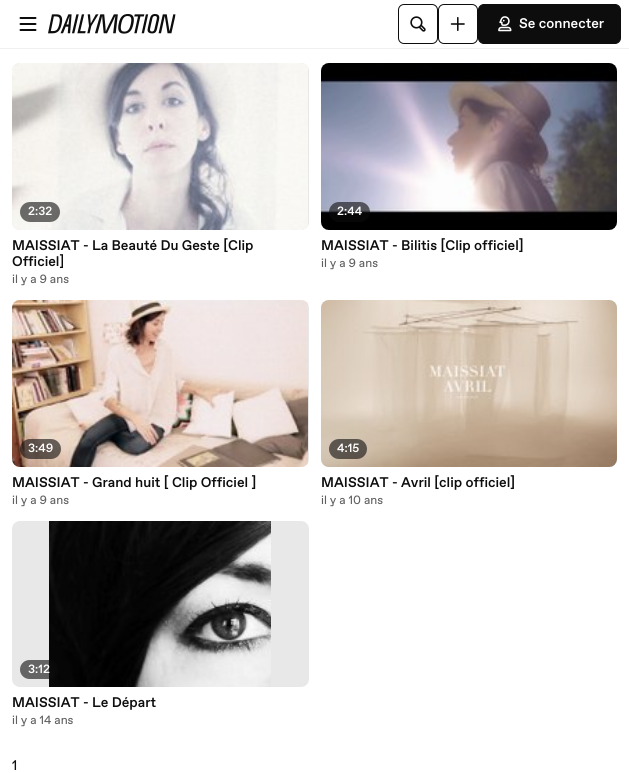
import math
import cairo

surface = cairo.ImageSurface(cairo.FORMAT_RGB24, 629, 773)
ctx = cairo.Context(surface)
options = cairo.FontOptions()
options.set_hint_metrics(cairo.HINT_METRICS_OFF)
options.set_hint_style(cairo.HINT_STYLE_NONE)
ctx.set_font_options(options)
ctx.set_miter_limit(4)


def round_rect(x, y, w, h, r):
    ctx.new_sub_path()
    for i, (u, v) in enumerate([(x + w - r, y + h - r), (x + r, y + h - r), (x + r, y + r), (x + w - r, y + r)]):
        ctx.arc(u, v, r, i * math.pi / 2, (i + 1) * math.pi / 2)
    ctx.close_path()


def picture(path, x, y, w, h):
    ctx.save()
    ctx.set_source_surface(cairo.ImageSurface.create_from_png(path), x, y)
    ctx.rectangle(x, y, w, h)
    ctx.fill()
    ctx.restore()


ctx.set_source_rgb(1, 1, 1)
ctx.paint()
ctx.set_source_rgb(0.941, 0.941, 0.941)
ctx.rectangle(0, 48, 629, 1)
ctx.fill()
picture("img1.png", 19, 17, 18, 14)
picture("img2.png", 48, 14, 128, 20)
round_rect(398.5, 4.5, 39, 39, 5.5)
ctx.set_source_rgb(0.051, 0.051, 0.051)
ctx.set_line_width(1)
ctx.stroke()
picture("img3.png", 410, 16, 16, 16)
round_rect(438.5, 4.5, 39, 39, 5.5)
ctx.stroke()
picture("img4.png", 450, 17, 15, 14)
round_rect(478.5, 4.5, 142, 39, 5.5)
ctx.fill_preserve()
ctx.stroke()
picture("img5.png", 498, 16, 14, 16)
ctx.select_font_face("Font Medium")
ctx.set_font_size(14)
ctx.set_source_rgb(1, 1, 1)
ctx.move_to(519, 28)
ctx.show_text("Se connecter")
ctx.set_source_rgb(0.91, 0.91, 0.91)
round_rect(12, 63, 297, 167, 8)
ctx.fill()
picture("img6.png", 12, 63, 296, 167)
ctx.set_source_rgba(0.051, 0.051, 0.051, 0.6)
round_rect(20, 202, 40, 20, 10)
ctx.fill()
ctx.set_font_size(12)
ctx.set_source_rgb(1, 1, 1)
ctx.move_to(28, 215)
ctx.show_text("2:32")
ctx.set_font_size(14)
ctx.set_source_rgb(0.051, 0.051, 0.051)
ctx.move_to(12, 250)
ctx.show_text("MAISSIAT - La Beauté Du Geste [Clip")
ctx.move_to(12, 266)
ctx.show_text("Officiel]")
ctx.select_font_face("Font")
ctx.set_font_size(12)
ctx.set_source_rgb(0.376, 0.376, 0.376)
ctx.move_to(12, 283)
ctx.show_text("il y a 9 ans")
ctx.set_source_rgb(0.91, 0.91, 0.91)
round_rect(321, 63, 296, 167, 8)
ctx.fill()
picture("img7.png", 321, 63, 296, 167)
ctx.set_source_rgba(0.051, 0.051, 0.051, 0.6)
round_rect(329, 202, 41, 20, 10)
ctx.fill()
ctx.select_font_face("Font Medium")
ctx.set_source_rgb(1, 1, 1)
ctx.move_to(337, 215)
ctx.show_text("2:44")
ctx.set_font_size(14)
ctx.set_source_rgb(0.051, 0.051, 0.051)
ctx.move_to(321, 250)
ctx.show_text("MAISSIAT - Bilitis [Clip officiel]")
ctx.select_font_face("Font")
ctx.set_font_size(12)
ctx.set_source_rgb(0.376, 0.376, 0.376)
ctx.move_to(321, 267)
ctx.show_text("il y a 9 ans")
ctx.set_source_rgb(0.91, 0.91, 0.91)
round_rect(12, 300, 297, 167, 8)
ctx.fill()
picture("img8.png", 12, 300, 296, 167)
ctx.set_source_rgba(0.051, 0.051, 0.051, 0.6)
round_rect(20, 439, 41, 20, 10)
ctx.fill()
ctx.select_font_face("Font Medium")
ctx.set_source_rgb(1, 1, 1)
ctx.move_to(28, 452)
ctx.show_text("3:49")
ctx.set_font_size(14)
ctx.set_source_rgb(0.051, 0.051, 0.051)
ctx.move_to(12, 487)
ctx.show_text("MAISSIAT - Grand huit [ Clip Officiel ]")
ctx.select_font_face("Font")
ctx.set_font_size(12)
ctx.set_source_rgb(0.376, 0.376, 0.376)
ctx.move_to(12, 504)
ctx.show_text("il y a 9 ans")
ctx.set_source_rgb(0.91, 0.91, 0.91)
round_rect(321, 300, 296, 167, 8)
ctx.fill()
picture("img9.png", 321, 300, 296, 167)
ctx.set_source_rgba(0.051, 0.051, 0.051, 0.6)
round_rect(329, 439, 38, 20, 10)
ctx.fill()
ctx.select_font_face("Font Medium")
ctx.set_source_rgb(1, 1, 1)
ctx.move_to(337, 452)
ctx.show_text("4:15")
ctx.set_font_size(14)
ctx.set_source_rgb(0.051, 0.051, 0.051)
ctx.move_to(321, 487)
ctx.show_text("MAISSIAT - Avril [clip officiel]")
ctx.select_font_face("Font")
ctx.set_font_size(12)
ctx.set_source_rgb(0.376, 0.376, 0.376)
ctx.move_to(321, 504)
ctx.show_text("il y a 10 ans")
ctx.set_source_rgb(0.91, 0.91, 0.91)
round_rect(12, 521, 297, 166, 8)
ctx.fill()
picture("img10.png", 49, 521, 222, 166)
ctx.set_source_rgba(0.051, 0.051, 0.051, 0.6)
round_rect(20, 660, 38, 19, 9.5)
ctx.fill()
ctx.select_font_face("Font Medium")
ctx.set_source_rgb(1, 1, 1)
ctx.move_to(28, 673)
ctx.show_text("3:12")
ctx.set_font_size(14)
ctx.set_source_rgb(0.051, 0.051, 0.051)
ctx.move_to(12, 707)
ctx.show_text("MAISSIAT - Le Départ")
ctx.select_font_face("Font")
ctx.set_font_size(12)
ctx.set_source_rgb(0.376, 0.376, 0.376)
ctx.move_to(12, 724)
ctx.show_text("il y a 14 ans")
ctx.set_font_size(14)
ctx.set_source_rgb(0.051, 0.051, 0.051)
ctx.move_to(12, 770)
ctx.show_text("1")
surface.write_to_png("page.png")
